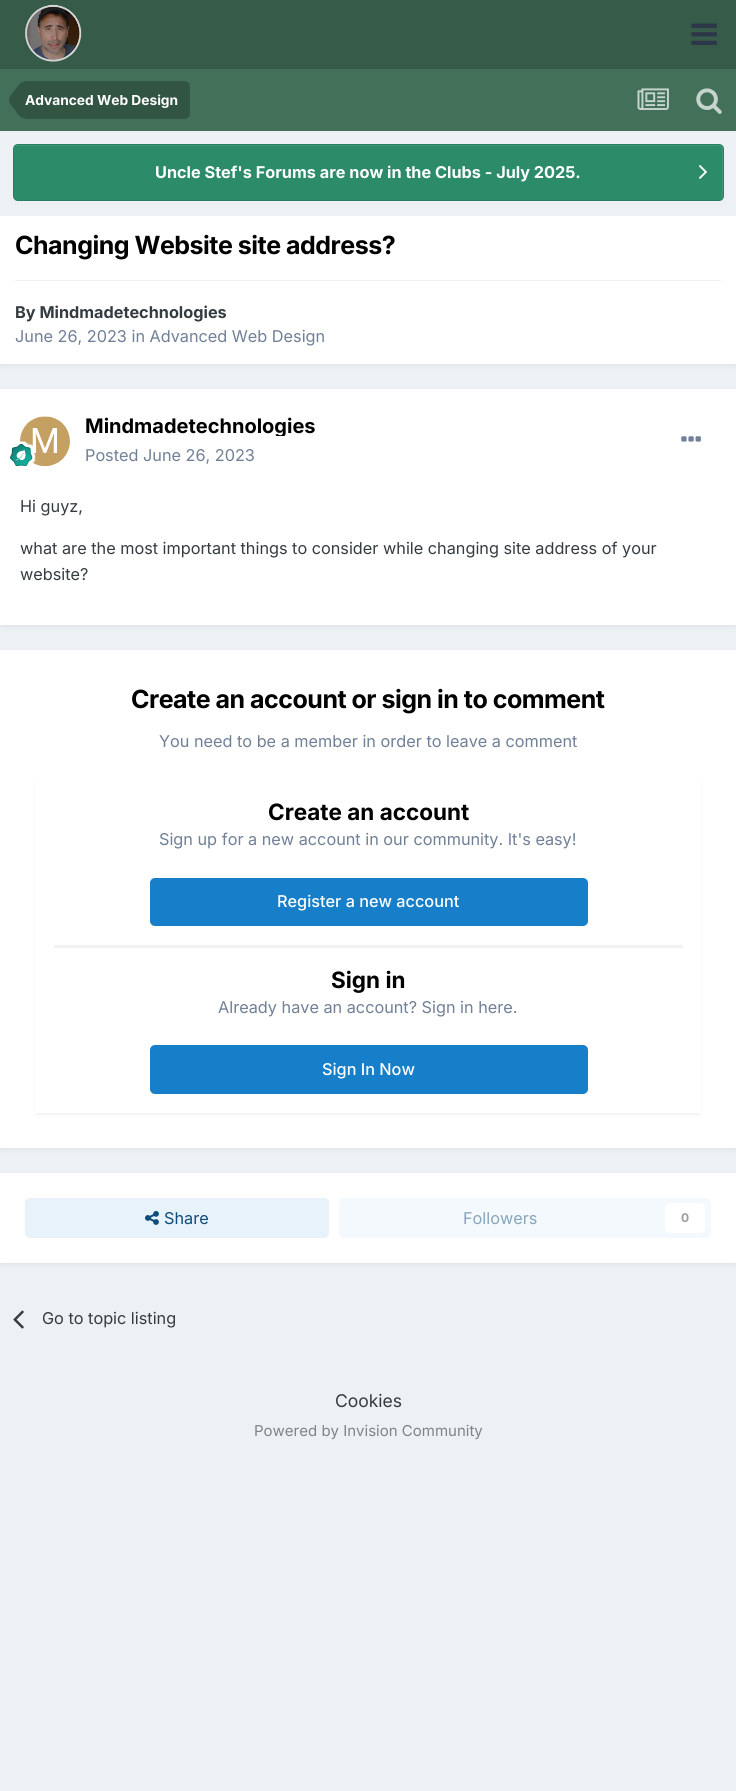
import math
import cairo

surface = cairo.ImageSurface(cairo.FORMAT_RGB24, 736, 1791)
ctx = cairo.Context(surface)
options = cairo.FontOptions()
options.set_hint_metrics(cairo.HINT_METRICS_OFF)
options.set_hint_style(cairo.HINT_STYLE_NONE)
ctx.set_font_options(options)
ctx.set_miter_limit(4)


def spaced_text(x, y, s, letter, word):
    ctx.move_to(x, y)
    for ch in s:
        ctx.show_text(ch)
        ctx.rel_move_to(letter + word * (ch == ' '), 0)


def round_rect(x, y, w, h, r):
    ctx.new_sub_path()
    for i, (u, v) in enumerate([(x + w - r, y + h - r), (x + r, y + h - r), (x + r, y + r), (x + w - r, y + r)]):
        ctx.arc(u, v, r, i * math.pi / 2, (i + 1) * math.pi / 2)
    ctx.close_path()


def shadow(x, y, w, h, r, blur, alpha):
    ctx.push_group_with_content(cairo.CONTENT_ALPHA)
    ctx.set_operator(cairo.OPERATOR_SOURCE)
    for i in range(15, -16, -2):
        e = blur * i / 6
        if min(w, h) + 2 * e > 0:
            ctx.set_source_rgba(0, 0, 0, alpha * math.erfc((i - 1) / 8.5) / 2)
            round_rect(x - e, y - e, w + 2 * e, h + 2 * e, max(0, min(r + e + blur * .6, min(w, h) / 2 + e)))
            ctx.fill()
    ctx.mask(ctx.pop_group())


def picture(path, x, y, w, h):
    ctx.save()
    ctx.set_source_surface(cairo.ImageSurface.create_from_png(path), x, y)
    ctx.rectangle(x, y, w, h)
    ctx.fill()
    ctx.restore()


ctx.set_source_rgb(0.929, 0.941, 0.957)
ctx.paint()
ctx.set_source_rgb(0.212, 0.361, 0.286)
ctx.rectangle(0, 0, 736, 69)
ctx.fill()
picture("img1.png", 25, 4, 57, 58)
picture("img2.png", 691, 23, 26, 22)
ctx.set_source_rgb(0.259, 0.439, 0.349)
ctx.rectangle(0, 69, 736, 62)
ctx.fill()
ctx.set_source_rgb(0.196, 0.329, 0.263)
ctx.new_path()
ctx.move_to(25, 81)
ctx.line_to(184, 81)
ctx.curve_to(187.5, 81, 190, 83.5, 190, 87)
ctx.line_to(190, 113)
ctx.curve_to(190, 116.5, 187.5, 119, 184, 119)
ctx.line_to(25, 119)
ctx.close_path()
ctx.fill()
ctx.new_path()
ctx.move_to(25, 100)
ctx.line_to(25, 118.5)
ctx.curve_to(19.5, 118.5, 16.5, 112, 14, 108.5)
ctx.curve_to(12, 106, 9, 103.5, 9, 100)
ctx.close_path()
ctx.move_to(25, 100)
ctx.line_to(9, 100)
ctx.curve_to(9, 96.5, 12, 94, 14, 91.5)
ctx.curve_to(16.5, 88, 19.5, 81.5, 25, 81.5)
ctx.close_path()
ctx.fill()
ctx.select_font_face("Inter", cairo.FONT_SLANT_NORMAL, cairo.FONT_WEIGHT_BOLD)
ctx.set_font_size(13.75)
ctx.set_source_rgb(1, 1, 1)
ctx.move_to(25, 105)
ctx.show_text("Advanced Web Design")
picture("img3.png", 637, 88, 32, 22)
picture("img4.png", 696, 88, 26, 26)
ctx.set_source_rgb(0.173, 0.549, 0.412)
round_rect(13, 144, 711, 57, 5)
ctx.fill()
ctx.set_source_rgb(0.255, 0.596, 0.471)
ctx.new_path()
ctx.move_to(18, 146)
ctx.line_to(719, 146)
ctx.curve_to(721, 146, 722, 148, 722, 150)
ctx.line_to(722, 199)
ctx.curve_to(723, 198, 723, 197, 723, 196)
ctx.line_to(723, 149)
ctx.curve_to(723, 147, 721, 145, 719, 145)
ctx.line_to(18, 145)
ctx.curve_to(16, 145, 14, 147, 14, 149)
ctx.line_to(14, 150)
ctx.curve_to(14, 148, 15, 146, 18, 146)
ctx.close_path()
ctx.fill()
round_rect(13.5, 144.5, 710, 56, 4.5)
ctx.set_source_rgba(0, 0, 0, 0.1)
ctx.set_line_width(1)
ctx.stroke()
ctx.set_font_size(16.25)
ctx.set_source_rgb(1, 1, 1)
ctx.move_to(155, 178)
ctx.show_text("Uncle Stef's Forums are now in the Clubs - July 2025.")
picture("img5.png", 699, 165, 8, 14)
ctx.set_source_rgb(0.176, 0.216, 0.282)
shadow(1, 220, 734, 145, 0, 2.5, 0.1)
ctx.set_source_rgb(1, 1, 1)
ctx.rectangle(0, 216, 736, 148)
ctx.fill()
ctx.set_font_size(25)
ctx.set_source_rgb(0, 0, 0)
spaced_text(15, 254, "Changing Website site address?", -0.5, 0)
ctx.set_source_rgb(0.937, 0.937, 0.941)
ctx.rectangle(15, 280, 706, 1)
ctx.fill()
ctx.set_font_size(16.25)
ctx.set_source_rgb(0.208, 0.235, 0.255)
ctx.move_to(15, 318)
ctx.show_text("By Mindmadetechnologies")
ctx.select_font_face("Inter")
ctx.set_source_rgb(0.443, 0.502, 0.588)
ctx.move_to(15, 342)
ctx.show_text("June 26, 2023 in Advanced Web Design")
ctx.set_source_rgb(0.176, 0.216, 0.282)
shadow(1, 393, 734, 233, 0, 2.5, 0.1)
ctx.set_source_rgb(1, 1, 1)
ctx.rectangle(0, 389, 736, 236)
ctx.fill()
picture("img6.png", 20, 416, 50, 50)
picture("img7.png", 10, 441, 26, 25)
ctx.save()
ctx.rectangle(85, 414, 230, 22)
ctx.clip()
ctx.select_font_face("Inter", cairo.FONT_SLANT_NORMAL, cairo.FONT_WEIGHT_BOLD)
ctx.set_font_size(20)
ctx.set_source_rgb(0, 0, 0)
ctx.move_to(85, 433)
ctx.show_text("Mindmadetechnologies")
ctx.restore()
ctx.set_source_rgb(0.443, 0.502, 0.588)
ctx.move_to(85, 461)
ctx.show_text("Posted June 26, 2023")
picture("img8.png", 681, 436, 20, 6)
ctx.set_source_rgb(0.208, 0.235, 0.255)
ctx.move_to(20, 512)
ctx.show_text("Hi guyz,")
ctx.move_to(20, 554)
ctx.show_text("what are the most important things to consider while changing site address of your")
ctx.move_to(20, 580)
ctx.show_text("website?")
ctx.set_source_rgb(0.176, 0.216, 0.282)
shadow(1, 654, 734, 495, 0, 2.5, 0.1)
ctx.set_source_rgb(1, 1, 1)
ctx.rectangle(0, 650, 736, 498)
ctx.fill()
ctx.select_font_face("Inter", cairo.FONT_SLANT_NORMAL, cairo.FONT_WEIGHT_BOLD)
ctx.set_font_size(25)
ctx.set_source_rgb(0, 0, 0)
spaced_text(131, 708, "Create an account or sign in to comment", -0.5, 0)
ctx.select_font_face("Inter")
ctx.set_font_size(16.25)
ctx.set_source_rgb(0.443, 0.502, 0.588)
ctx.move_to(159, 747)
ctx.show_text("You need to be a member in order to leave a comment")
ctx.set_source_rgb(0.176, 0.216, 0.282)
shadow(36, 783, 664, 331, 0, 2.5, 0.1)
ctx.set_source_rgb(1, 1, 1)
ctx.rectangle(35, 780, 666, 333)
ctx.fill()
ctx.set_source_rgb(0.949, 0.949, 0.949)
ctx.rectangle(54, 945, 629, 3)
ctx.fill()
ctx.select_font_face("Inter", cairo.FONT_SLANT_NORMAL, cairo.FONT_WEIGHT_BOLD)
ctx.set_font_size(22.5)
ctx.set_source_rgb(0, 0, 0)
ctx.move_to(268, 820)
ctx.show_text("Create an account")
ctx.select_font_face("Inter")
ctx.set_font_size(16.25)
ctx.set_source_rgb(0.443, 0.502, 0.588)
ctx.move_to(159, 845)
ctx.show_text("Sign up for a new account in our community. It's easy!")
ctx.set_source_rgb(0.09, 0.494, 0.788)
round_rect(150, 878, 438, 48, 5)
ctx.fill()
ctx.select_font_face("Inter Medium")
ctx.set_source_rgb(1, 1, 1)
ctx.move_to(277, 907)
ctx.show_text("Register a new account")
ctx.select_font_face("Inter", cairo.FONT_SLANT_NORMAL, cairo.FONT_WEIGHT_BOLD)
ctx.set_font_size(22.5)
ctx.set_source_rgb(0, 0, 0)
ctx.move_to(331, 988)
ctx.show_text("Sign in")
ctx.select_font_face("Inter")
ctx.set_font_size(16.25)
ctx.set_source_rgb(0.443, 0.502, 0.588)
ctx.move_to(218, 1013)
ctx.show_text("Already have an account? Sign in here.")
ctx.set_source_rgb(0.09, 0.494, 0.788)
round_rect(150, 1045, 438, 49, 5)
ctx.fill()
ctx.select_font_face("Inter Medium")
ctx.set_source_rgb(1, 1, 1)
ctx.move_to(322, 1075)
ctx.show_text("Sign In Now")
ctx.set_source_rgb(0.176, 0.216, 0.282)
shadow(1, 1176, 734, 88, 0, 2.5, 0.1)
ctx.set_source_rgb(1, 1, 1)
ctx.rectangle(0, 1173, 736, 90)
ctx.fill()
ctx.set_source_rgb(0.91, 0.949, 0.98)
round_rect(25, 1198, 304, 40, 5)
ctx.fill()
picture("img9.png", 145, 1211, 14, 14)
ctx.select_font_face("Inter")
ctx.set_source_rgb(0.055, 0.298, 0.475)
ctx.move_to(164, 1224)
ctx.show_text("Share")
ctx.set_source_rgb(0.957, 0.976, 0.992)
round_rect(339, 1198, 372, 40, 5)
ctx.fill()
ctx.set_source_rgb(0.529, 0.651, 0.737)
ctx.move_to(463, 1224)
ctx.show_text("Followers")
ctx.set_source_rgb(1, 1, 1)
round_rect(665, 1203, 40, 30, 5)
ctx.fill()
ctx.select_font_face("Inter", cairo.FONT_SLANT_NORMAL, cairo.FONT_WEIGHT_BOLD)
ctx.set_font_size(12)
ctx.set_source_rgb(0.604, 0.62, 0.627)
ctx.move_to(681, 1222)
ctx.show_text("0")
picture("img10.png", 13, 1310, 11, 19)
ctx.select_font_face("Inter")
ctx.set_font_size(16.25)
ctx.set_source_rgb(0.208, 0.235, 0.255)
ctx.move_to(42, 1324)
ctx.show_text("Go to topic listing")
ctx.set_font_size(17.5)
ctx.move_to(335, 1407)
ctx.show_text("Cookies")
ctx.set_font_size(15)
ctx.set_source_rgb(0.498, 0.518, 0.537)
ctx.move_to(254, 1436)
ctx.show_text("Powered by Invision Community")
surface.write_to_png("page.png")
